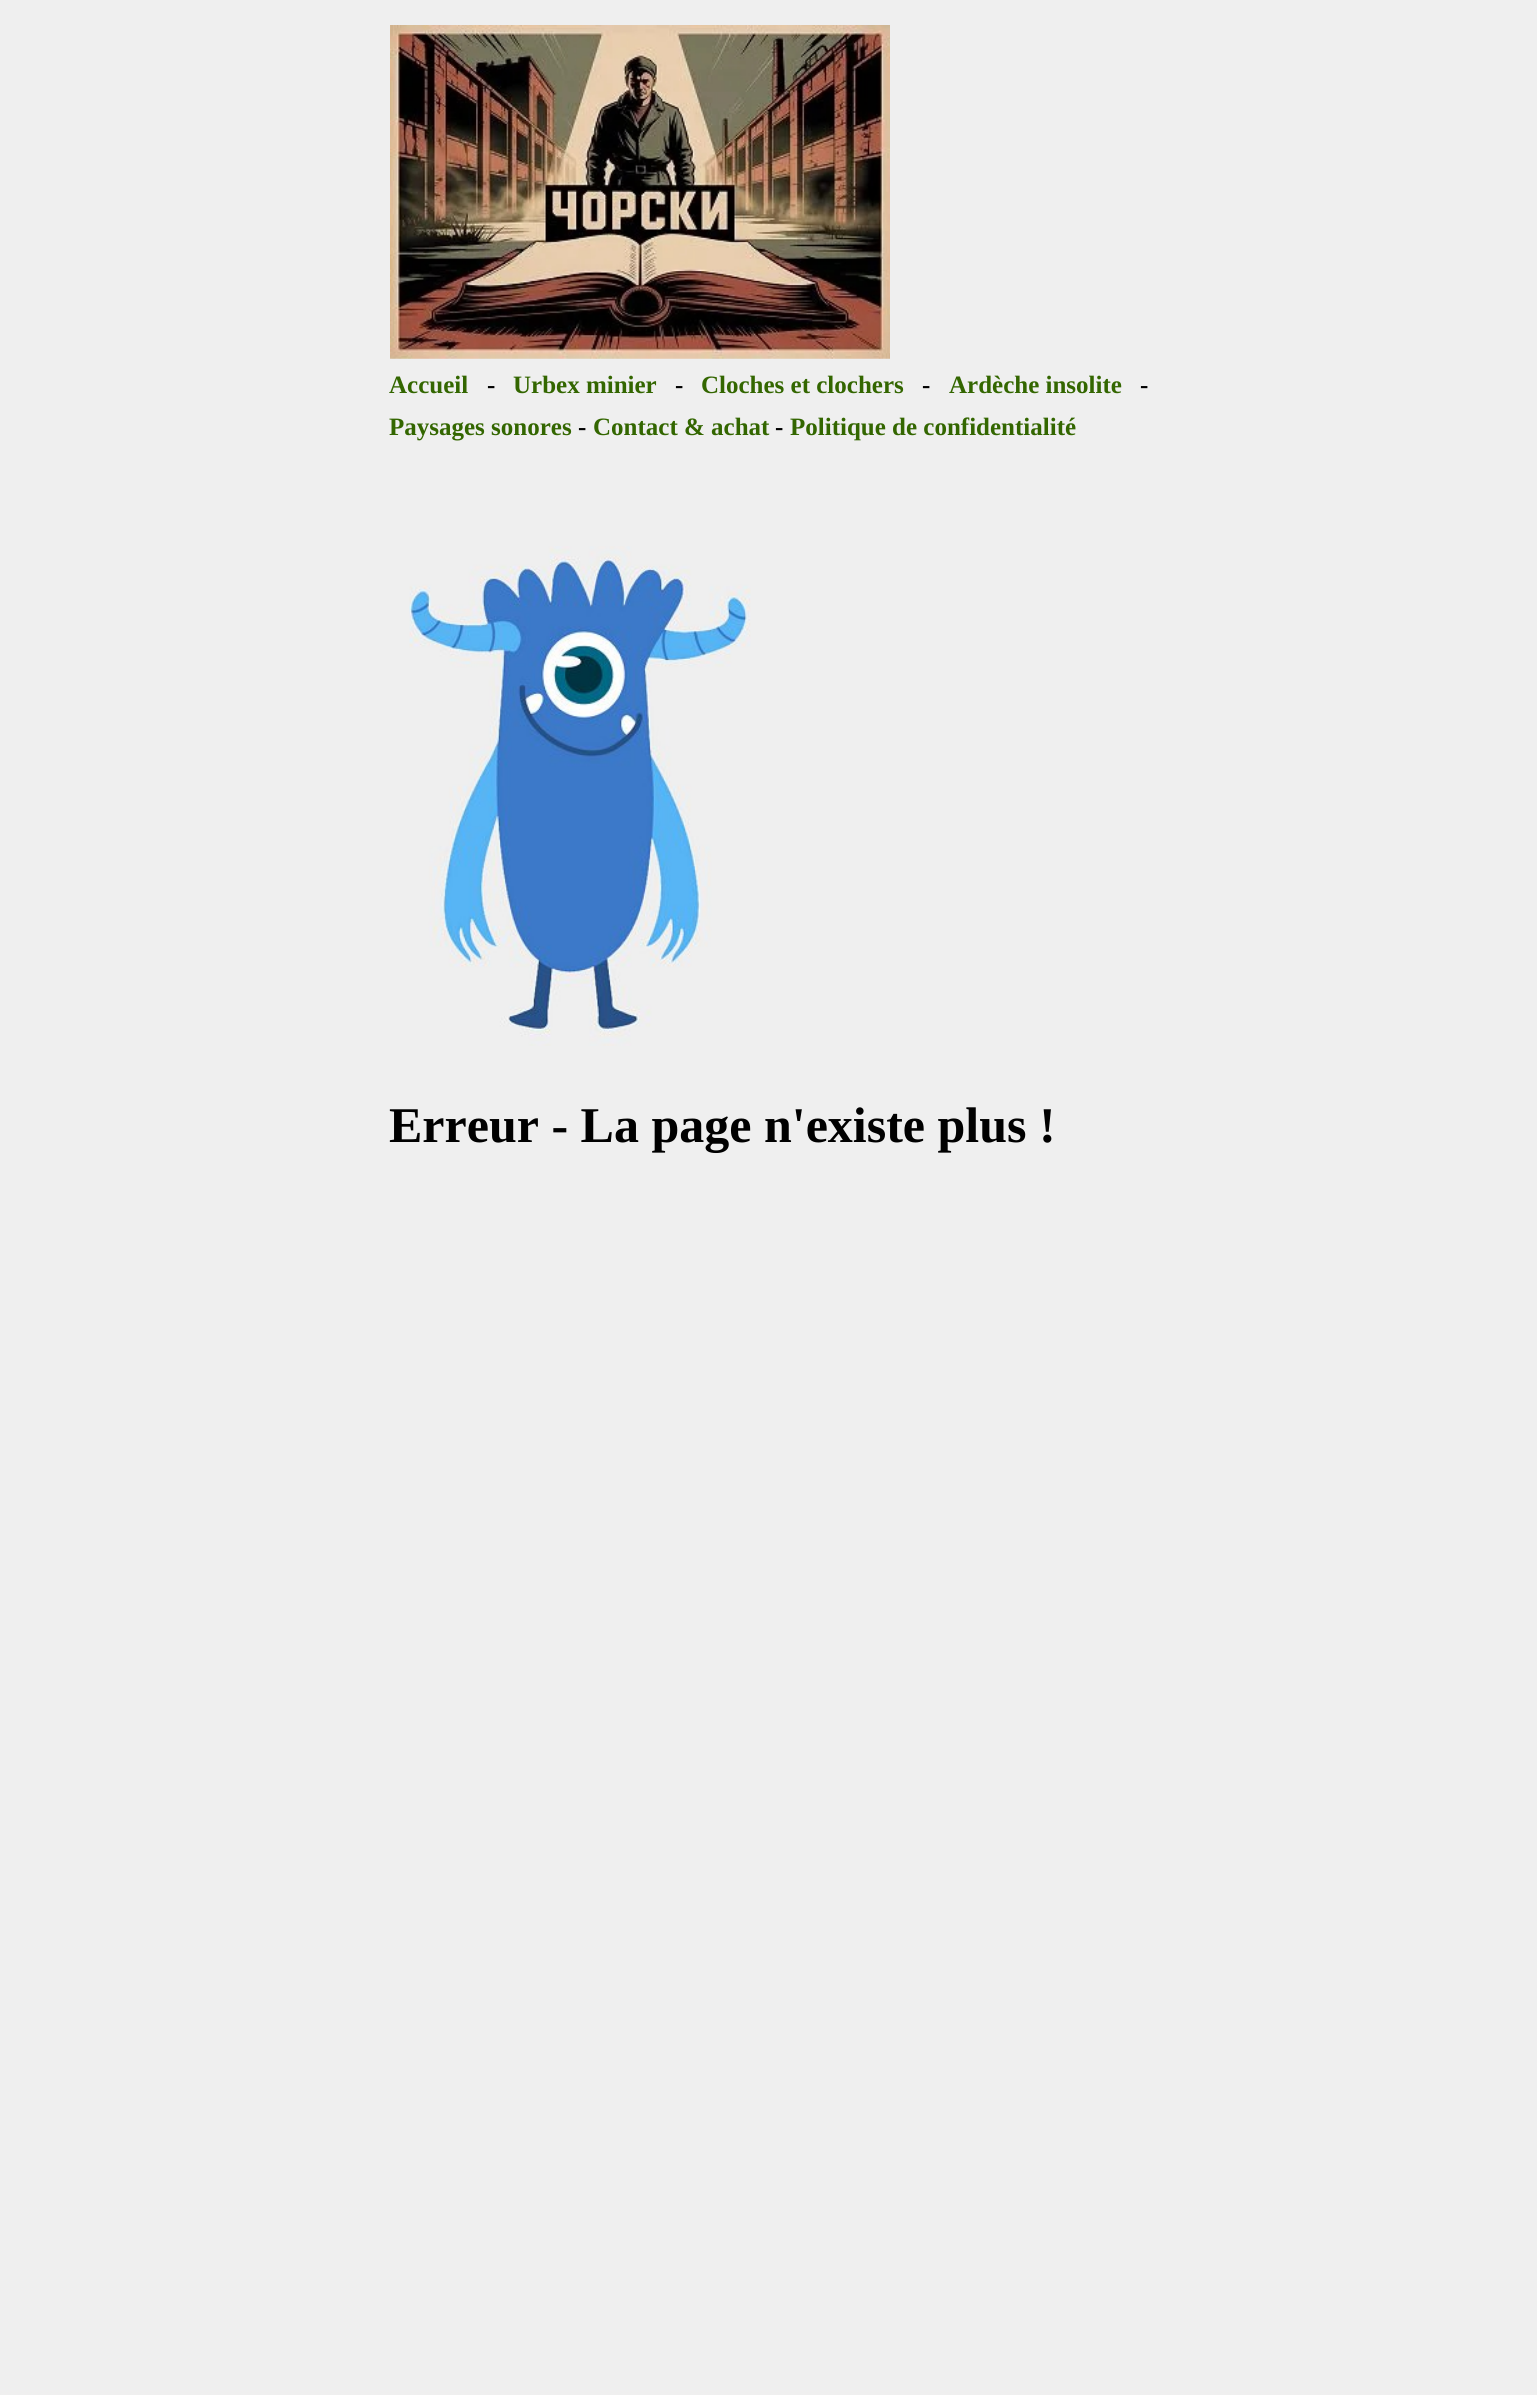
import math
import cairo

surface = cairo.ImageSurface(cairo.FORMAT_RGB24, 1537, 2395)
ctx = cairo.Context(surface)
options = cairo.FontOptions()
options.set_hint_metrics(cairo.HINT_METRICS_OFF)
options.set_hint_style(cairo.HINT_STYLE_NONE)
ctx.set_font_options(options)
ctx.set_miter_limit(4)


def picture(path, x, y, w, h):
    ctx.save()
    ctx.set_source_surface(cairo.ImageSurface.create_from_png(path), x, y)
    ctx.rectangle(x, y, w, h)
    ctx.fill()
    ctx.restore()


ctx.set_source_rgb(0.937, 0.937, 0.937)
ctx.paint()
picture("img1.png", 390, 25, 500, 334)
ctx.select_font_face("Liberation Serif", cairo.FONT_SLANT_NORMAL, cairo.FONT_WEIGHT_BOLD)
ctx.set_font_size(25)
ctx.set_source_rgb(0.2, 0.4, 0)
ctx.move_to(389, 393)
ctx.show_text("Accueil")
ctx.set_source_rgb(0, 0, 0)
ctx.move_to(487, 393)
ctx.show_text("-")
ctx.set_source_rgb(0.2, 0.4, 0)
ctx.move_to(513, 393)
ctx.show_text("Urbex minier")
ctx.set_source_rgb(0, 0, 0)
ctx.move_to(675, 393)
ctx.show_text("-")
ctx.set_source_rgb(0.2, 0.4, 0)
ctx.move_to(701, 393)
ctx.show_text("Cloches et clochers")
ctx.set_source_rgb(0, 0, 0)
ctx.move_to(922, 393)
ctx.show_text("-")
ctx.set_source_rgb(0.2, 0.4, 0)
ctx.move_to(949, 393)
ctx.show_text("Ardèche insolite")
ctx.set_source_rgb(0, 0, 0)
ctx.move_to(1140, 393)
ctx.show_text("-")
ctx.set_source_rgb(0.2, 0.4, 0)
ctx.move_to(389, 435)
ctx.show_text("Paysages sonores")
ctx.set_source_rgb(0, 0, 0)
ctx.move_to(578, 435)
ctx.show_text("-")
ctx.set_source_rgb(0.2, 0.4, 0)
ctx.move_to(593, 435)
ctx.show_text("Contact & achat")
ctx.set_source_rgb(0, 0, 0)
ctx.move_to(775, 435)
ctx.show_text("-")
ctx.set_source_rgb(0.2, 0.4, 0)
ctx.move_to(790, 435)
ctx.show_text("Politique de confidentialité")
picture("img2.png", 409, 546, 342, 500)
ctx.set_font_size(50)
ctx.set_source_rgb(0, 0, 0)
ctx.move_to(389, 1142)
ctx.show_text("Erreur - La page n'existe plus !")
surface.write_to_png("page.png")
